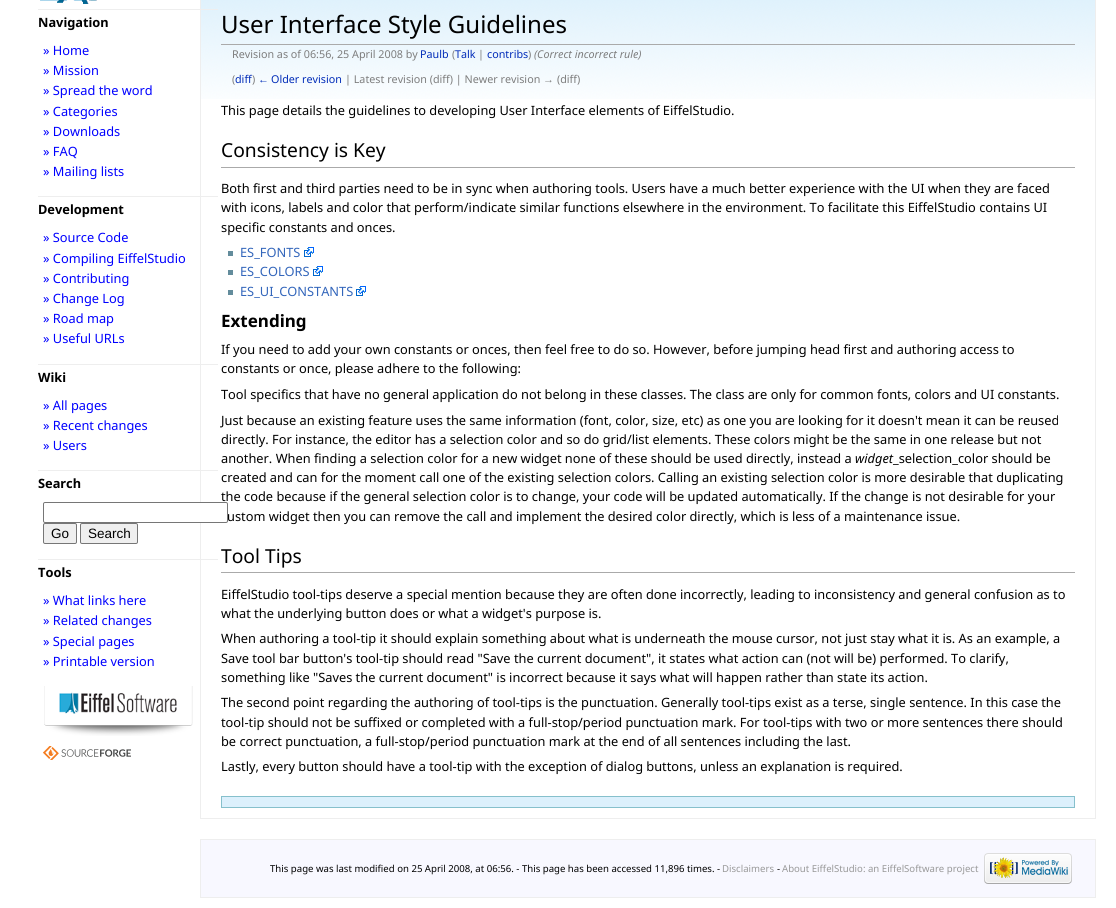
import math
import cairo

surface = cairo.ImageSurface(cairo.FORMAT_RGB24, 1116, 908)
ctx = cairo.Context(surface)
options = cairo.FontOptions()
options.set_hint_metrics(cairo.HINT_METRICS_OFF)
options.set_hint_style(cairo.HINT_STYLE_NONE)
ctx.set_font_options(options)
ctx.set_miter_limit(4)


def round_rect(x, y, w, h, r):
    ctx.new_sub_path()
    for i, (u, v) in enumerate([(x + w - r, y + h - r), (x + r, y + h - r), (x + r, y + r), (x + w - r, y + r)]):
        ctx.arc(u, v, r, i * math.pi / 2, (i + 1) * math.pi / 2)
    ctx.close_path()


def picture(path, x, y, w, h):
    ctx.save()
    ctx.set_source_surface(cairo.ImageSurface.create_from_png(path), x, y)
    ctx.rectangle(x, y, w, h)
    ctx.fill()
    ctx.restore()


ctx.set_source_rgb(1, 1, 1)
ctx.paint()
picture("img1.png", 40, 0, 57, 4)
picture("img4.png", 201, 0, 894, 99)
ctx.rectangle(200.5, -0.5, 895, 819)
ctx.set_source_rgb(0.933, 0.933, 0.933)
ctx.set_line_width(1)
ctx.stroke()
ctx.rectangle(38, 9, 180, 1)
ctx.fill()
ctx.select_font_face("Noto Sans", cairo.FONT_SLANT_NORMAL, cairo.FONT_WEIGHT_BOLD)
ctx.set_font_size(12.8)
ctx.set_source_rgb(0, 0, 0)
ctx.move_to(38, 27)
ctx.show_text("Navigation")
ctx.select_font_face("Noto Sans")
ctx.set_source_rgb(0, 0, 1)
ctx.move_to(43, 55)
ctx.show_text("» Home")
ctx.move_to(43, 75)
ctx.show_text("» Mission")
ctx.move_to(43, 95)
ctx.show_text("» Spread the word")
ctx.move_to(43, 116)
ctx.show_text("» Categories")
ctx.move_to(43, 136)
ctx.show_text("» Downloads")
ctx.move_to(43, 156)
ctx.show_text("» FAQ")
ctx.move_to(43, 176)
ctx.show_text("» Mailing lists")
ctx.set_source_rgb(0.933, 0.933, 0.933)
ctx.rectangle(38, 196, 180, 1)
ctx.fill()
ctx.select_font_face("Noto Sans", cairo.FONT_SLANT_NORMAL, cairo.FONT_WEIGHT_BOLD)
ctx.set_source_rgb(0, 0, 0)
ctx.move_to(38, 214)
ctx.show_text("Development")
ctx.select_font_face("Noto Sans")
ctx.set_source_rgb(0, 0, 1)
ctx.move_to(43, 242)
ctx.show_text("» Source Code")
ctx.move_to(43, 263)
ctx.show_text("» Compiling EiffelStudio")
ctx.move_to(43, 283)
ctx.show_text("» Contributing")
ctx.move_to(43, 303)
ctx.show_text("» Change Log")
ctx.move_to(43, 323)
ctx.show_text("» Road map")
ctx.move_to(43, 343)
ctx.show_text("» Useful URLs")
ctx.set_source_rgb(0.933, 0.933, 0.933)
ctx.rectangle(38, 364, 180, 1)
ctx.fill()
ctx.select_font_face("Noto Sans", cairo.FONT_SLANT_NORMAL, cairo.FONT_WEIGHT_BOLD)
ctx.set_source_rgb(0, 0, 0)
ctx.move_to(38, 382)
ctx.show_text("Wiki")
ctx.select_font_face("Noto Sans")
ctx.set_source_rgb(0, 0, 1)
ctx.move_to(43, 410)
ctx.show_text("» All pages")
ctx.move_to(43, 430)
ctx.show_text("» Recent changes")
ctx.move_to(43, 450)
ctx.show_text("» Users")
ctx.set_source_rgb(0.933, 0.933, 0.933)
ctx.rectangle(38, 470, 180, 1)
ctx.fill()
ctx.select_font_face("Noto Sans", cairo.FONT_SLANT_NORMAL, cairo.FONT_WEIGHT_BOLD)
ctx.set_source_rgb(0, 0, 0)
ctx.move_to(38, 488)
ctx.show_text("Search")
ctx.select_font_face("Noto Sans")
ctx.move_to(221, 501)
ctx.show_text("the code because if the general selection color is to change, your code will be updated automatically. If the change is not desirable for your")
ctx.set_source_rgb(1, 1, 1)
round_rect(43.5, 502.5, 184, 20, 1.5)
ctx.fill_preserve()
ctx.set_source_rgb(0.463, 0.463, 0.463)
ctx.stroke()
ctx.set_source_rgb(0.937, 0.937, 0.937)
round_rect(43.5, 523.5, 33, 20, 1.5)
ctx.fill_preserve()
ctx.set_source_rgb(0.463, 0.463, 0.463)
ctx.stroke()
ctx.select_font_face("Liberation Sans")
ctx.set_font_size(13.5)
ctx.set_source_rgb(0, 0, 0)
ctx.move_to(51, 538)
ctx.show_text("Go")
ctx.set_source_rgb(0.937, 0.937, 0.937)
round_rect(80.5, 523.5, 57, 20, 1.5)
ctx.fill_preserve()
ctx.set_source_rgb(0.463, 0.463, 0.463)
ctx.stroke()
ctx.set_source_rgb(0, 0, 0)
ctx.move_to(88, 538)
ctx.show_text("Search")
ctx.set_source_rgb(0.933, 0.933, 0.933)
ctx.rectangle(38, 559, 180, 1)
ctx.fill()
ctx.select_font_face("Noto Sans", cairo.FONT_SLANT_NORMAL, cairo.FONT_WEIGHT_BOLD)
ctx.set_font_size(12.8)
ctx.set_source_rgb(0, 0, 0)
ctx.move_to(38, 577)
ctx.show_text("Tools")
ctx.select_font_face("Noto Sans")
ctx.set_source_rgb(0, 0, 1)
ctx.move_to(43, 605)
ctx.show_text("» What links here")
ctx.move_to(43, 625)
ctx.show_text("» Related changes")
ctx.move_to(43, 646)
ctx.show_text("» Special pages")
ctx.move_to(43, 666)
ctx.show_text("» Printable version")
picture("img2.png", 44, 686, 149, 50)
picture("img3.png", 43, 746, 88, 14)
ctx.set_source_rgb(0.667, 0.667, 0.667)
ctx.rectangle(221, 44, 854, 1)
ctx.fill()
ctx.set_font_size(24)
ctx.set_source_rgb(0, 0, 0)
ctx.move_to(221, 33)
ctx.show_text("User Interface Style Guidelines")
ctx.set_font_size(10.75)
ctx.set_source_rgb(0.49, 0.49, 0.49)
ctx.move_to(232, 58)
ctx.show_text("Revision as of 06:56, 25 April 2008 by")
ctx.set_source_rgb(0, 0.169, 0.722)
ctx.move_to(420, 58)
ctx.show_text("Paulb")
ctx.set_source_rgb(0.49, 0.49, 0.49)
ctx.move_to(452, 58)
ctx.show_text("(")
ctx.set_source_rgb(0, 0.169, 0.722)
ctx.move_to(455, 58)
ctx.show_text("Talk")
ctx.set_source_rgb(0.49, 0.49, 0.49)
ctx.move_to(478, 58)
ctx.show_text("|")
ctx.set_source_rgb(0, 0.169, 0.722)
ctx.move_to(487, 58)
ctx.show_text("contribs")
ctx.set_source_rgb(0.49, 0.49, 0.49)
ctx.move_to(528, 58)
ctx.show_text(")")
ctx.select_font_face("Noto Sans", cairo.FONT_SLANT_ITALIC)
ctx.move_to(534, 58)
ctx.show_text("(Correct incorrect rule)")
ctx.select_font_face("Noto Sans")
ctx.move_to(232, 83)
ctx.show_text("(")
ctx.set_source_rgb(0, 0.169, 0.722)
ctx.move_to(235, 83)
ctx.show_text("diff")
ctx.set_source_rgb(0.49, 0.49, 0.49)
ctx.move_to(252, 83)
ctx.show_text(")")
ctx.select_font_face("Liberation Serif")
ctx.set_source_rgb(0, 0.169, 0.722)
ctx.move_to(258, 83)
ctx.show_text("←")
ctx.select_font_face("Noto Sans")
ctx.move_to(271, 83)
ctx.show_text("Older revision")
ctx.set_source_rgb(0.49, 0.49, 0.49)
ctx.move_to(345, 83)
ctx.show_text("| Latest revision (diff) | Newer revision")
ctx.select_font_face("Liberation Serif")
ctx.move_to(543, 83)
ctx.show_text("→")
ctx.select_font_face("Noto Sans")
ctx.move_to(557, 83)
ctx.show_text("(diff)")
ctx.set_font_size(12.8)
ctx.set_source_rgb(0, 0, 0)
ctx.move_to(221, 115)
ctx.show_text("This page details the guidelines to developing User Interface elements of EiffelStudio.")
ctx.set_source_rgb(0.667, 0.667, 0.667)
ctx.rectangle(221, 167, 854, 1)
ctx.fill()
ctx.set_font_size(19.25)
ctx.set_source_rgb(0, 0, 0)
ctx.move_to(221, 157)
ctx.show_text("Consistency is Key")
ctx.set_font_size(12.8)
ctx.move_to(221, 193)
ctx.show_text("Both first and third parties need to be in sync when authoring tools. Users have a much better experience with the UI when they are faced")
ctx.move_to(221, 212)
ctx.show_text("with icons, labels and color that perform/indicate similar functions elsewhere in the environment. To facilitate this EiffelStudio contains UI")
ctx.move_to(221, 232)
ctx.show_text("specific constants and onces.")
ctx.set_source_rgb(0.388, 0.549, 0.612)
ctx.rectangle(228, 251, 5, 5)
ctx.fill()
ctx.set_source_rgb(0.2, 0.4, 0.733)
ctx.move_to(240, 257)
ctx.show_text("ES_FONTS")
picture("img5.png", 304, 247, 10, 10)
ctx.set_source_rgb(0.388, 0.549, 0.612)
ctx.rectangle(228, 270, 5, 5)
ctx.fill()
ctx.set_source_rgb(0.2, 0.4, 0.733)
ctx.move_to(240, 276)
ctx.show_text("ES_COLORS")
picture("img5.png", 313, 266, 10, 10)
ctx.set_source_rgb(0.388, 0.549, 0.612)
ctx.rectangle(228, 290, 5, 5)
ctx.fill()
ctx.set_source_rgb(0.2, 0.4, 0.733)
ctx.move_to(240, 296)
ctx.show_text("ES_UI_CONSTANTS")
picture("img5.png", 356, 286, 10, 10)
ctx.select_font_face("Noto Sans", cairo.FONT_SLANT_NORMAL, cairo.FONT_WEIGHT_BOLD)
ctx.set_font_size(17)
ctx.set_source_rgb(0, 0, 0)
ctx.move_to(221, 327)
ctx.show_text("Extending")
ctx.select_font_face("Noto Sans")
ctx.set_font_size(12.8)
ctx.move_to(221, 354)
ctx.show_text("If you need to add your own constants or onces, then feel free to do so. However, before jumping head first and authoring access to")
ctx.move_to(221, 373)
ctx.show_text("constants or once, please adhere to the following:")
ctx.move_to(221, 399)
ctx.show_text("Tool specifics that have no general application do not belong in these classes. The class are only for common fonts, colors and UI constants.")
ctx.move_to(221, 425)
ctx.show_text("Just because an existing feature uses the same information (font, color, size, etc) as one you are looking for it doesn't mean it can be reused")
ctx.move_to(221, 444)
ctx.show_text("directly. For instance, the editor has a selection color and so do grid/list elements. These colors might be the same in one release but not")
ctx.move_to(221, 463)
ctx.show_text("another. When finding a selection color for a new widget none of these should be used directly, instead a")
ctx.select_font_face("Noto Sans", cairo.FONT_SLANT_ITALIC)
ctx.move_to(855, 463)
ctx.show_text("widget")
ctx.select_font_face("Noto Sans")
ctx.move_to(893, 463)
ctx.show_text("_selection_color should be")
ctx.move_to(221, 482)
ctx.show_text("created and can for the moment call one of the existing selection colors. Calling an existing selection color is more desirable that duplicating")
ctx.move_to(227, 521)
ctx.show_text("ustom widget then you can remove the call and implement the desired color directly, which is less of a maintenance issue.")
ctx.set_source_rgb(0.667, 0.667, 0.667)
ctx.rectangle(221, 572, 854, 1)
ctx.fill()
ctx.set_font_size(19.25)
ctx.set_source_rgb(0, 0, 0)
ctx.move_to(221, 563)
ctx.show_text("Tool Tips")
ctx.set_font_size(12.8)
ctx.move_to(221, 599)
ctx.show_text("EiffelStudio tool-tips deserve a special mention because they are often done incorrectly, leading to inconsistency and general confusion as to")
ctx.move_to(221, 618)
ctx.show_text("what the underlying button does or what a widget's purpose is.")
ctx.move_to(221, 643)
ctx.show_text("When authoring a tool-tip it should explain something about what is underneath the mouse cursor, not just stay what it is. As an example, a")
ctx.move_to(221, 663)
ctx.show_text("Save tool bar button's tool-tip should read \"Save the current document\", it states what action can (not will be) performed. To clarify,")
ctx.move_to(221, 682)
ctx.show_text("something like \"Saves the current document\" is incorrect because it says what will happen rather than state its action.")
ctx.move_to(221, 707)
ctx.show_text("The second point regarding the authoring of tool-tips is the punctuation. Generally tool-tips exist as a terse, single sentence. In this case the")
ctx.move_to(221, 727)
ctx.show_text("tool-tip should not be suffixed or completed with a full-stop/period punctuation mark. For tool-tips with two or more sentences there should")
ctx.move_to(221, 746)
ctx.show_text("be correct punctuation, a full-stop/period punctuation mark at the end of all sentences including the last.")
ctx.move_to(221, 771)
ctx.show_text("Lastly, every button should have a tool-tip with the exception of dialog buttons, unless an explanation is required.")
ctx.set_source_rgb(0.863, 0.941, 0.988)
ctx.rectangle(221.5, 796.5, 853, 11)
ctx.fill_preserve()
ctx.set_source_rgb(0.525, 0.753, 0.8)
ctx.stroke()
ctx.set_source_rgb(0.969, 0.969, 1)
ctx.rectangle(200.5, 839.5, 895, 58)
ctx.fill_preserve()
ctx.set_source_rgb(0.933, 0.933, 0.933)
ctx.stroke()
ctx.set_font_size(9.6)
ctx.set_source_rgb(0, 0, 0)
ctx.move_to(270, 872)
ctx.show_text("This page was last modified on 25 April 2008, at 06:56. - This page has been accessed 11,896 times. -")
ctx.set_source_rgb(0.6, 0.6, 0.6)
ctx.move_to(722, 872)
ctx.show_text("Disclaimers")
ctx.set_source_rgb(0, 0, 0)
ctx.move_to(777, 872)
ctx.show_text("-")
ctx.set_source_rgb(0.6, 0.6, 0.6)
ctx.move_to(782, 872)
ctx.show_text("About EiffelStudio: an EiffelSoftware project")
picture("img6.png", 984, 853, 88, 31)
surface.write_to_png("page.png")
